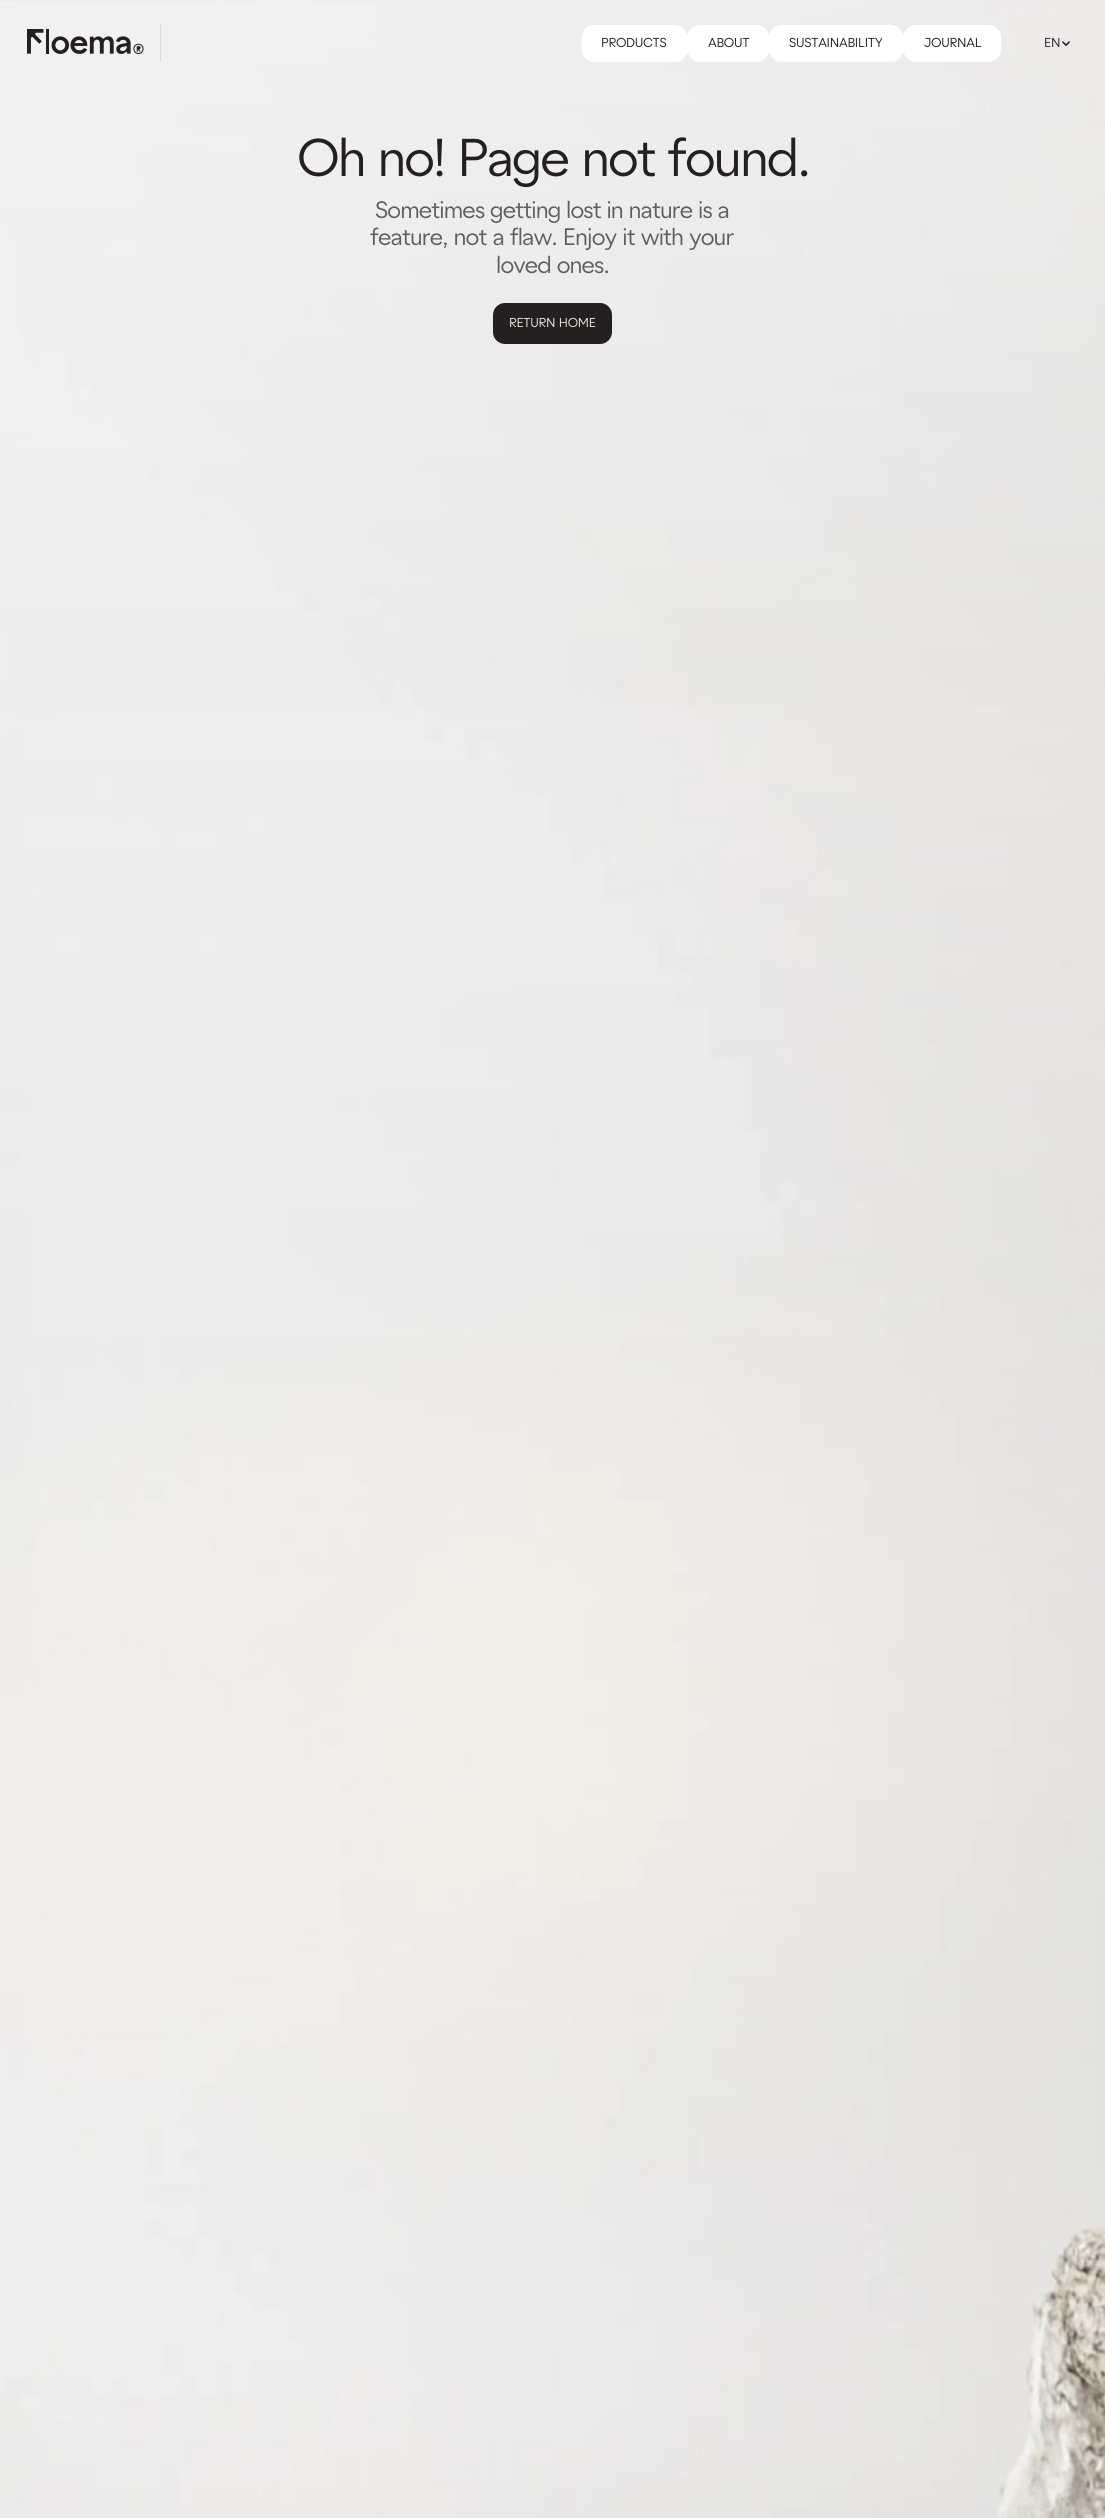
import math
import cairo

surface = cairo.ImageSurface(cairo.FORMAT_RGB24, 1105, 2518)
ctx = cairo.Context(surface)
options = cairo.FontOptions()
options.set_hint_metrics(cairo.HINT_METRICS_OFF)
options.set_hint_style(cairo.HINT_STYLE_NONE)
ctx.set_font_options(options)
ctx.set_miter_limit(4)


def spaced_text(x, y, s, letter, word):
    ctx.move_to(x, y)
    for ch in s:
        ctx.show_text(ch)
        ctx.rel_move_to(letter + word * (ch == ' '), 0)


def round_rect(x, y, w, h, r):
    ctx.new_sub_path()
    for i, (u, v) in enumerate([(x + w - r, y + h - r), (x + r, y + h - r), (x + r, y + r), (x + w - r, y + r)]):
        ctx.arc(u, v, r, i * math.pi / 2, (i + 1) * math.pi / 2)
    ctx.close_path()


def picture(path, x, y, w, h):
    ctx.save()
    ctx.set_source_surface(cairo.ImageSurface.create_from_png(path), x, y)
    ctx.rectangle(x, y, w, h)
    ctx.fill()
    ctx.restore()


ctx.set_source_rgb(1, 1, 1)
ctx.paint()
picture("img4.png", 0, 0, 1105, 2518)
picture("img1.png", 27, 29, 117, 25)
ctx.set_source_rgb(0.847, 0.847, 0.847)
ctx.rectangle(160, 24, 1, 38)
ctx.fill()
picture("img2.png", 581, 25, 420, 37)
ctx.select_font_face("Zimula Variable")
ctx.set_font_size(12)
ctx.set_source_rgb(0.141, 0.122, 0.129)
spaced_text(601, 47, "PRODUCTS", -0.25, 0)
spaced_text(708, 47, "ABOUT", -0.25, 0)
spaced_text(789, 47, "SUSTAINABILITY", -0.25, 0)
spaced_text(924, 47, "JOURNAL", -0.25, 0)
spaced_text(1044, 47, "EN", -0.25, 0)
picture("img3.png", 1062, 41, 8, 6)
ctx.set_font_size(49.25)
spaced_text(297, 176, "Oh no! Page not found.", -2, 0)
ctx.set_font_size(22.1)
ctx.set_source_rgb(0.376, 0.365, 0.369)
spaced_text(375, 218, "Sometimes getting lost in nature is a", -0.9, 0)
spaced_text(370, 245, "feature, not a flaw. Enjoy it with your", -0.9, 0.25)
spaced_text(496, 273, "loved ones.", -0.9, 0)
ctx.set_source_rgb(0.141, 0.122, 0.129)
round_rect(493, 303, 119, 41, 12)
ctx.fill()
ctx.set_font_size(12)
ctx.set_source_rgb(0.922, 0.906, 0.875)
spaced_text(509, 327, "RETURN HOME", -0.25, 0)
surface.write_to_png("page.png")
